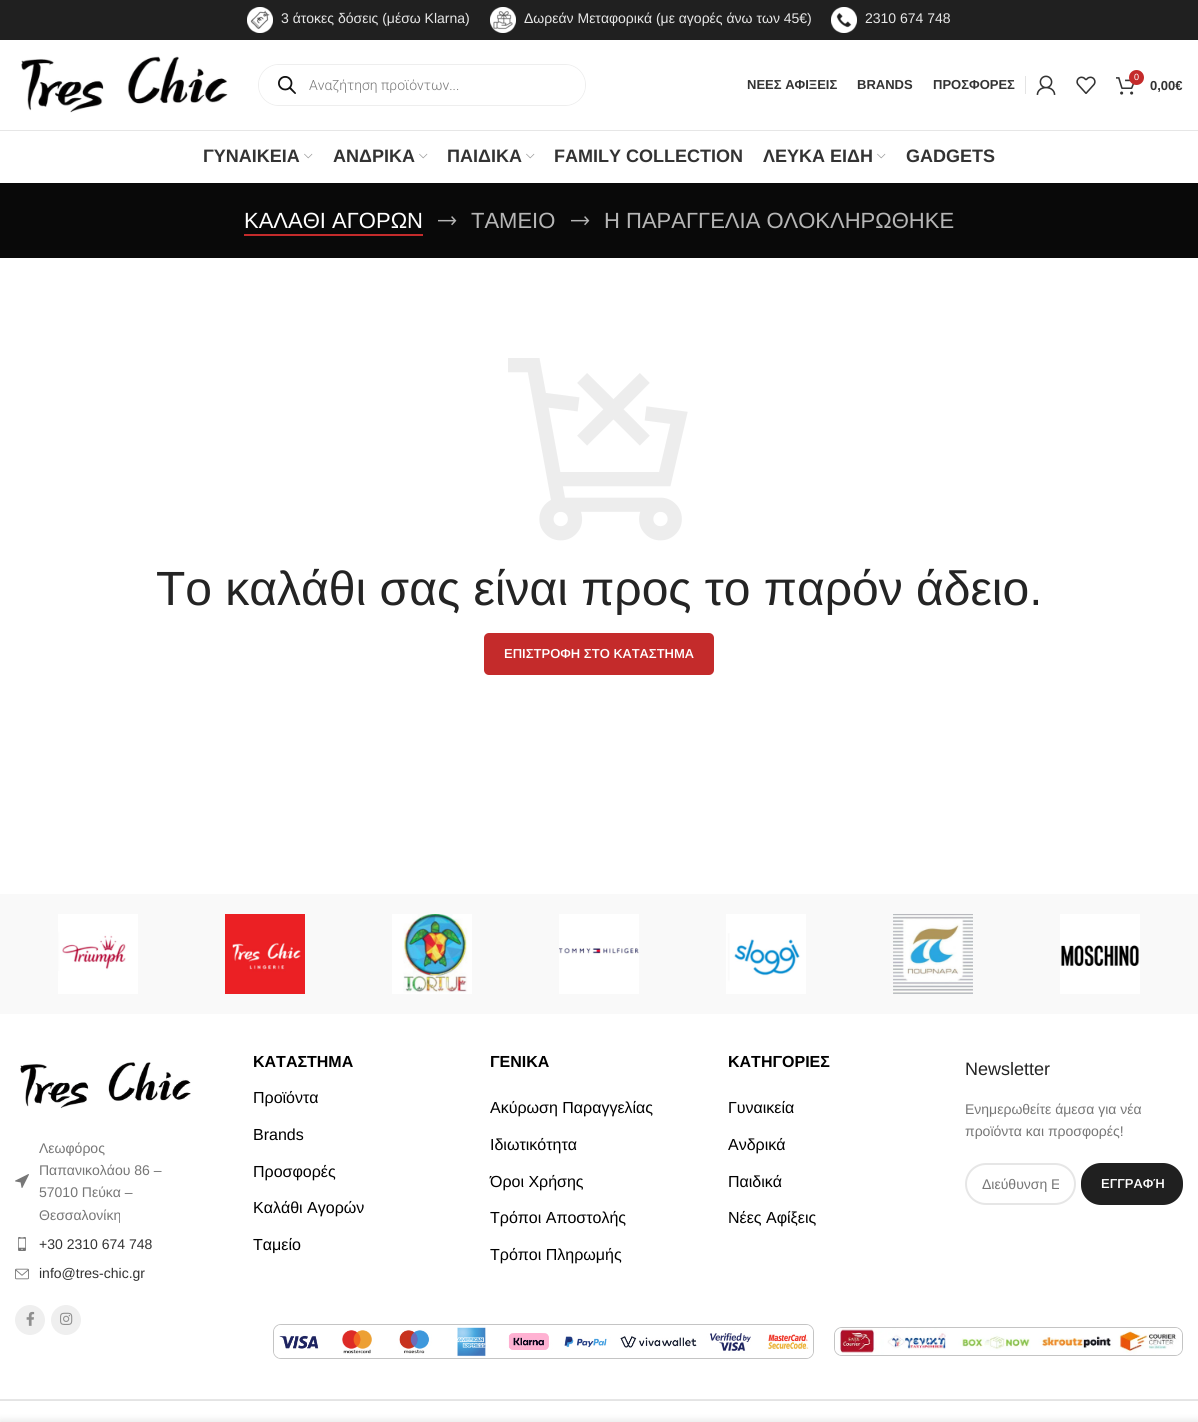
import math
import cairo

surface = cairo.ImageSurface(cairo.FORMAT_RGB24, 1198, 1422)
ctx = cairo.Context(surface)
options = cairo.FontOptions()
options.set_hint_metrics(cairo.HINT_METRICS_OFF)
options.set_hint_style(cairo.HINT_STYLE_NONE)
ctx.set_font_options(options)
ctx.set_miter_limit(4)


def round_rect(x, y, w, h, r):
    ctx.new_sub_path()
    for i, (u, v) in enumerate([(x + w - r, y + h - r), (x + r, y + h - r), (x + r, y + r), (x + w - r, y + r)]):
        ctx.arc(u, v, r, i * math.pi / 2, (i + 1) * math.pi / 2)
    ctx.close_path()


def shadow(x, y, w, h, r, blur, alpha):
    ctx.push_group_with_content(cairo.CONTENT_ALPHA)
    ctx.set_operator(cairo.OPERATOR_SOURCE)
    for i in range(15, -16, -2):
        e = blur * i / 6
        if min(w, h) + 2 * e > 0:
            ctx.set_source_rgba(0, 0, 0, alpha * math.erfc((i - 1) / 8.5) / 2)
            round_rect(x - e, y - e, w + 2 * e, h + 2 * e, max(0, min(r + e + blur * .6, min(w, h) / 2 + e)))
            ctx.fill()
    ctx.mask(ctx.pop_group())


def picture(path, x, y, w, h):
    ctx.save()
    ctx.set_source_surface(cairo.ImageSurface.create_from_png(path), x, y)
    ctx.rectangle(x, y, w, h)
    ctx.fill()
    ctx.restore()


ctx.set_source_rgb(1, 1, 1)
ctx.paint()
ctx.set_source_rgb(0.125, 0.125, 0.125)
ctx.rectangle(0, 0, 1198, 40)
ctx.fill()
picture("img1.png", 247, 7, 26, 26)
ctx.select_font_face("Arimo")
ctx.set_font_size(14)
ctx.set_source_rgb(0.906, 0.906, 0.906)
ctx.move_to(281, 23)
ctx.show_text("3 άτοκες δόσεις (μέσω Klarna)")
picture("img2.png", 490, 7, 26, 26)
ctx.move_to(524, 23)
ctx.show_text("Δωρεάν Μεταφορικά (με αγορές άνω των 45€)")
picture("img3.png", 831, 7, 26, 26)
ctx.move_to(865, 23)
ctx.show_text("2310 674 748")
ctx.set_source_rgb(0.902, 0.902, 0.902)
ctx.rectangle(0, 130, 1198, 1)
ctx.fill()
picture("img4.png", 21, 56, 207, 57)
round_rect(258.5, 64.5, 327, 41, 20.5)
ctx.set_source_rgb(0.933, 0.933, 0.933)
ctx.set_line_width(1)
ctx.stroke()
ctx.set_source_rgb(1, 1, 1)
round_rect(259, 65, 326, 40, 20)
ctx.fill()
picture("img5.png", 278, 76, 18, 18)
ctx.select_font_face("Roboto Light")
ctx.set_source_rgb(0.463, 0.463, 0.463)
ctx.move_to(309, 90)
ctx.show_text("Αναζήτηση προϊόντων...")
ctx.select_font_face("Arimo", cairo.FONT_SLANT_NORMAL, cairo.FONT_WEIGHT_BOLD)
ctx.set_font_size(13)
ctx.set_source_rgb(0.2, 0.2, 0.2)
ctx.move_to(747, 89)
ctx.show_text("ΝΕΕΣ ΑΦΙΞΕΙΣ")
ctx.move_to(857, 89)
ctx.show_text("BRANDS")
ctx.move_to(933, 89)
ctx.show_text("ΠΡΟΣΦΟΡΕΣ")
ctx.set_source_rgb(0.894, 0.894, 0.894)
ctx.rectangle(1025, 76, 1, 18)
ctx.fill()
picture("img6.png", 1036, 75, 20, 20)
picture("img7.png", 1076, 76, 20, 18)
picture("img8.png", 1116, 77, 19, 18)
ctx.set_source_rgb(0.769, 0.169, 0.169)
ctx.arc(1136.5, 77.5, 7.5, 0, 2 * math.pi)
ctx.fill()
ctx.select_font_face("Arimo")
ctx.set_font_size(9)
ctx.set_source_rgb(1, 1, 1)
ctx.move_to(1134, 80)
ctx.show_text("0")
ctx.select_font_face("Arimo", cairo.FONT_SLANT_NORMAL, cairo.FONT_WEIGHT_BOLD)
ctx.set_font_size(13)
ctx.set_source_rgb(0.2, 0.2, 0.2)
ctx.move_to(1150, 90)
ctx.show_text("0,00€")
ctx.set_font_size(18)
ctx.move_to(203, 162)
ctx.show_text("ΓΥΝΑΙΚΕΙΑ")
picture("img9.png", 304, 153, 9, 6)
ctx.move_to(333, 162)
ctx.show_text("ΑΝΔΡΙΚΑ")
picture("img9.png", 419, 153, 9, 6)
ctx.move_to(447, 162)
ctx.show_text("ΠΑΙΔΙΚΑ")
picture("img9.png", 526, 153, 9, 6)
ctx.move_to(554, 162)
ctx.show_text("FAMILY COLLECTION")
ctx.move_to(763, 162)
ctx.show_text("ΛΕΥΚΑ ΕΙΔΗ")
picture("img9.png", 877, 153, 9, 6)
ctx.move_to(906, 162)
ctx.show_text("GADGETS")
ctx.set_source_rgb(0.039, 0.039, 0.039)
ctx.rectangle(0, 183, 1198, 75)
ctx.fill()
ctx.select_font_face("Arimo")
ctx.set_font_size(22)
ctx.set_source_rgb(1, 1, 1)
ctx.move_to(244, 228)
ctx.show_text("ΚΑΛΑΘΙ ΑΓΟΡΩΝ")
ctx.set_source_rgb(0.769, 0.169, 0.169)
ctx.rectangle(244, 234, 179, 2)
ctx.fill()
picture("img10.png", 438, 216, 19, 10)
ctx.set_source_rgb(0.714, 0.714, 0.714)
ctx.move_to(471, 228)
ctx.show_text("ΤΑΜΕΙΟ")
picture("img10.png", 571, 216, 19, 10)
ctx.move_to(604, 228)
ctx.show_text("Η ΠΑΡΑΓΓΕΛΙΑ ΟΛΟΚΛΗΡΩΘΗΚΕ")
picture("img11.png", 508, 358, 180, 183)
ctx.set_font_size(48)
ctx.set_source_rgb(0.141, 0.141, 0.141)
ctx.move_to(156, 605)
ctx.show_text("Το καλάθι σας είναι προς το παρόν άδειο.")
ctx.set_source_rgb(0.769, 0.169, 0.169)
round_rect(484, 633, 230, 42, 5)
ctx.fill()
ctx.select_font_face("Arimo SemiBold")
ctx.set_font_size(13)
ctx.set_source_rgb(1, 1, 1)
ctx.move_to(504, 658)
ctx.show_text("ΕΠΙΣΤΡΟΦΗ ΣΤΟ ΚΑΤΑΣΤΗΜΑ")
ctx.set_source_rgb(0.976, 0.976, 0.976)
ctx.rectangle(0, 894, 1198, 120)
ctx.fill()
picture("img12.png", 58, 914, 80, 80)
picture("img13.png", 225, 914, 80, 80)
picture("img14.png", 392, 914, 80, 80)
picture("img15.png", 559, 914, 80, 80)
picture("img16.png", 726, 914, 80, 80)
picture("img17.png", 893, 914, 80, 80)
picture("img18.png", 1060, 914, 80, 80)
ctx.set_source_rgb(0.902, 0.902, 0.902)
ctx.rectangle(0, 1399, 1198, 1)
ctx.fill()
picture("img19.png", 20, 1062, 171, 47)
picture("img20.png", 15, 1174, 14, 14)
ctx.select_font_face("Arimo")
ctx.set_font_size(14)
ctx.set_source_rgb(0.463, 0.463, 0.463)
ctx.move_to(39, 1153)
ctx.show_text("Λεωφόρος")
ctx.move_to(39, 1175)
ctx.show_text("Παπανικολάου 86 –")
ctx.move_to(39, 1197)
ctx.show_text("57010 Πεύκα –")
ctx.move_to(39, 1220)
ctx.show_text("Θεσσαλονίκη")
picture("img21.png", 18, 1237, 8, 14)
ctx.set_source_rgb(0.2, 0.2, 0.2)
ctx.move_to(39, 1249)
ctx.show_text("+30 2310 674 748")
picture("img22.png", 15, 1268, 14, 12)
ctx.move_to(39, 1278)
ctx.show_text("info@tres-chic.gr")
ctx.set_source_rgb(0.937, 0.937, 0.937)
ctx.new_path()
ctx.arc(30, 1320, 15, 0, 2 * math.pi)
ctx.fill()
picture("img23.png", 26, 1311, 9, 15)
ctx.arc(66, 1320, 15, 0, 2 * math.pi)
ctx.fill()
picture("img24.png", 60, 1312, 13, 13)
ctx.select_font_face("Arimo", cairo.FONT_SLANT_NORMAL, cairo.FONT_WEIGHT_BOLD)
ctx.set_font_size(16)
ctx.set_source_rgb(0, 0, 0)
ctx.move_to(253, 1067)
ctx.show_text("ΚΑΤΑΣΤΗΜΑ")
ctx.select_font_face("Arimo")
ctx.move_to(253, 1103)
ctx.show_text("Προϊόντα")
ctx.move_to(253, 1140)
ctx.show_text("Brands")
ctx.move_to(253, 1177)
ctx.show_text("Προσφορές")
ctx.move_to(253, 1213)
ctx.show_text("Καλάθι Αγορών")
ctx.move_to(253, 1250)
ctx.show_text("Ταμείο")
ctx.select_font_face("Arimo", cairo.FONT_SLANT_NORMAL, cairo.FONT_WEIGHT_BOLD)
ctx.move_to(490, 1067)
ctx.show_text("ΓΕΝΙΚΑ")
ctx.select_font_face("Arimo")
ctx.move_to(490, 1113)
ctx.show_text("Ακύρωση Παραγγελίας")
ctx.move_to(490, 1150)
ctx.show_text("Ιδιωτικότητα")
ctx.move_to(490, 1187)
ctx.show_text("Όροι Χρήσης")
ctx.move_to(490, 1223)
ctx.show_text("Τρόποι Αποστολής")
ctx.move_to(490, 1260)
ctx.show_text("Τρόποι Πληρωμής")
ctx.select_font_face("Arimo", cairo.FONT_SLANT_NORMAL, cairo.FONT_WEIGHT_BOLD)
ctx.move_to(728, 1067)
ctx.show_text("ΚΑΤΗΓΟΡΙΕΣ")
ctx.select_font_face("Arimo")
ctx.move_to(728, 1113)
ctx.show_text("Γυναικεία")
ctx.move_to(728, 1150)
ctx.show_text("Ανδρικά")
ctx.move_to(728, 1187)
ctx.show_text("Παιδικά")
ctx.move_to(728, 1223)
ctx.show_text("Νέες Αφίξεις")
ctx.set_font_size(18)
ctx.set_source_rgb(0.141, 0.141, 0.141)
ctx.move_to(965, 1075)
ctx.show_text("Newsletter")
ctx.set_font_size(14)
ctx.set_source_rgb(0.463, 0.463, 0.463)
ctx.move_to(965, 1114)
ctx.show_text("Ενημερωθείτε άμεσα για νέα")
ctx.move_to(965, 1136)
ctx.show_text("προϊόντα και προσφορές!")
round_rect(966, 1164, 109, 40, 20)
ctx.set_source_rgb(0.902, 0.902, 0.902)
ctx.set_line_width(2)
ctx.stroke()
ctx.save()
ctx.rectangle(982, 1176, 77, 16)
ctx.clip()
ctx.set_source_rgb(0.463, 0.463, 0.463)
ctx.move_to(982, 1189)
ctx.show_text("Διεύθυνση E")
ctx.restore()
ctx.set_source_rgb(0.125, 0.125, 0.125)
round_rect(1081, 1163, 102, 42, 20)
ctx.fill()
ctx.select_font_face("Arimo SemiBold")
ctx.set_font_size(13)
ctx.set_source_rgb(1, 1, 1)
ctx.move_to(1101, 1188)
ctx.show_text("ΕΓΓΡΑΦΉ")
round_rect(273.5, 1324.5, 540, 34, 7.5)
ctx.set_source_rgb(0.769, 0.769, 0.769)
ctx.set_line_width(1)
ctx.stroke()
picture("img25.png", 274, 1325, 539, 33)
round_rect(834.5, 1327.5, 348, 28, 7.5)
ctx.stroke()
picture("img26.png", 835, 1328, 347, 27)
ctx.set_source_rgb(0.894, 0.894, 0.894)
ctx.rectangle(0, 1400, 1198, 1)
ctx.fill()
ctx.set_source_rgb(0, 0, 0)
shadow(0, 1422, 1198, 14, 0, 4.5, 0.14)
surface.write_to_png("page.png")
